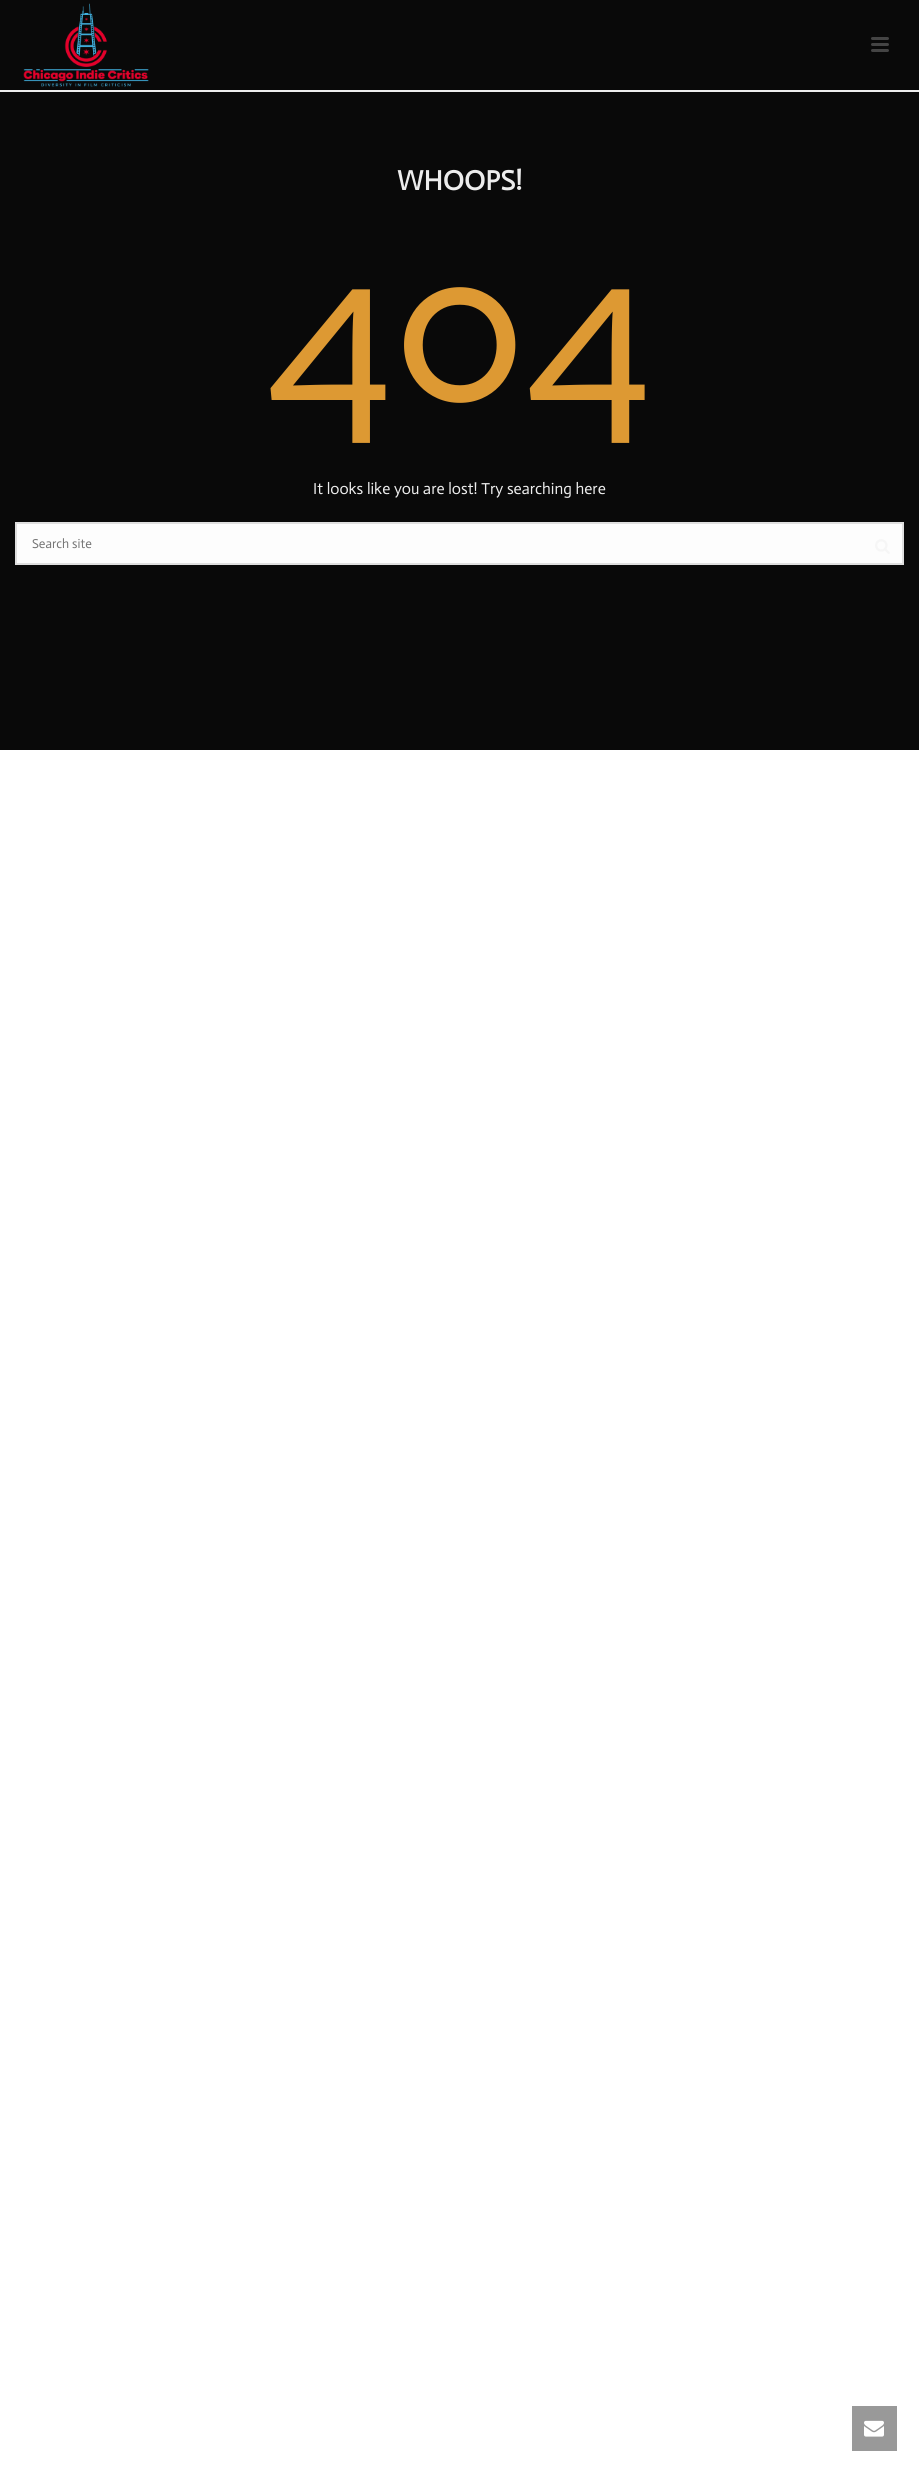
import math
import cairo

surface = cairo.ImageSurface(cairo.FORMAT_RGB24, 919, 2466)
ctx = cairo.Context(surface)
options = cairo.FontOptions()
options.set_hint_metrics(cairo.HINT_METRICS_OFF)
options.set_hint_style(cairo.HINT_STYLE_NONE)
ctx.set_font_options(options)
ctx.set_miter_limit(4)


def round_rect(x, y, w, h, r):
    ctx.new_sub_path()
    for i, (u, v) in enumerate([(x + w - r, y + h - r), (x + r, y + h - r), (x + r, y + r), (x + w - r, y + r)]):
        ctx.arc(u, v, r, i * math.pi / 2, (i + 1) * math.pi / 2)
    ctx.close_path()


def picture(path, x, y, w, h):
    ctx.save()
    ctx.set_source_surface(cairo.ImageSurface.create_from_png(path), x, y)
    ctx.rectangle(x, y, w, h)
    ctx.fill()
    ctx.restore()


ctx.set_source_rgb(1, 1, 1)
ctx.paint()
ctx.set_source_rgb(0.039, 0.039, 0.039)
ctx.rectangle(0, 0, 919, 90)
ctx.fill()
ctx.set_source_rgb(0.929, 0.929, 0.929)
ctx.rectangle(0, 90, 919, 2)
ctx.fill()
picture("img1.png", 23, 3, 126, 84)
ctx.set_source_rgb(0.267, 0.267, 0.267)
round_rect(871, 37, 18, 3, 1.5)
ctx.fill()
round_rect(871, 43, 18, 3, 1.5)
ctx.fill()
round_rect(871, 49, 18, 3, 1.5)
ctx.fill()
ctx.set_source_rgb(0.039, 0.039, 0.039)
ctx.rectangle(0, 92, 919, 658)
ctx.fill()
ctx.select_font_face("Actor", cairo.FONT_SLANT_NORMAL, cairo.FONT_WEIGHT_BOLD)
ctx.set_font_size(28)
ctx.set_source_rgb(0.922, 0.922, 0.922)
ctx.move_to(397, 190)
ctx.show_text("WHOOPS!")
ctx.select_font_face("Actor")
ctx.set_font_size(220)
ctx.set_source_rgb(0.867, 0.6, 0.2)
ctx.move_to(267, 400)
ctx.show_text("404")
ctx.set_font_size(16)
ctx.set_source_rgb(0.922, 0.922, 0.922)
ctx.move_to(313, 494)
ctx.show_text("It looks like you are lost! Try searching here")
ctx.set_source_rgb(0.992, 0.992, 0.992)
ctx.rectangle(16, 523, 887, 41)
ctx.fill_preserve()
ctx.set_source_rgb(0.875, 0.875, 0.875)
ctx.stroke()
ctx.set_font_size(13)
ctx.set_source_rgb(0.459, 0.459, 0.459)
ctx.move_to(32, 548)
ctx.show_text("Search site")
picture("img2.png", 875, 539, 15, 15)
ctx.set_source_rgb(0.6, 0.6, 0.6)
ctx.rectangle(852, 2406, 45, 45)
ctx.fill()
picture("img3.png", 864, 2420, 20, 17)
surface.write_to_png("page.png")
